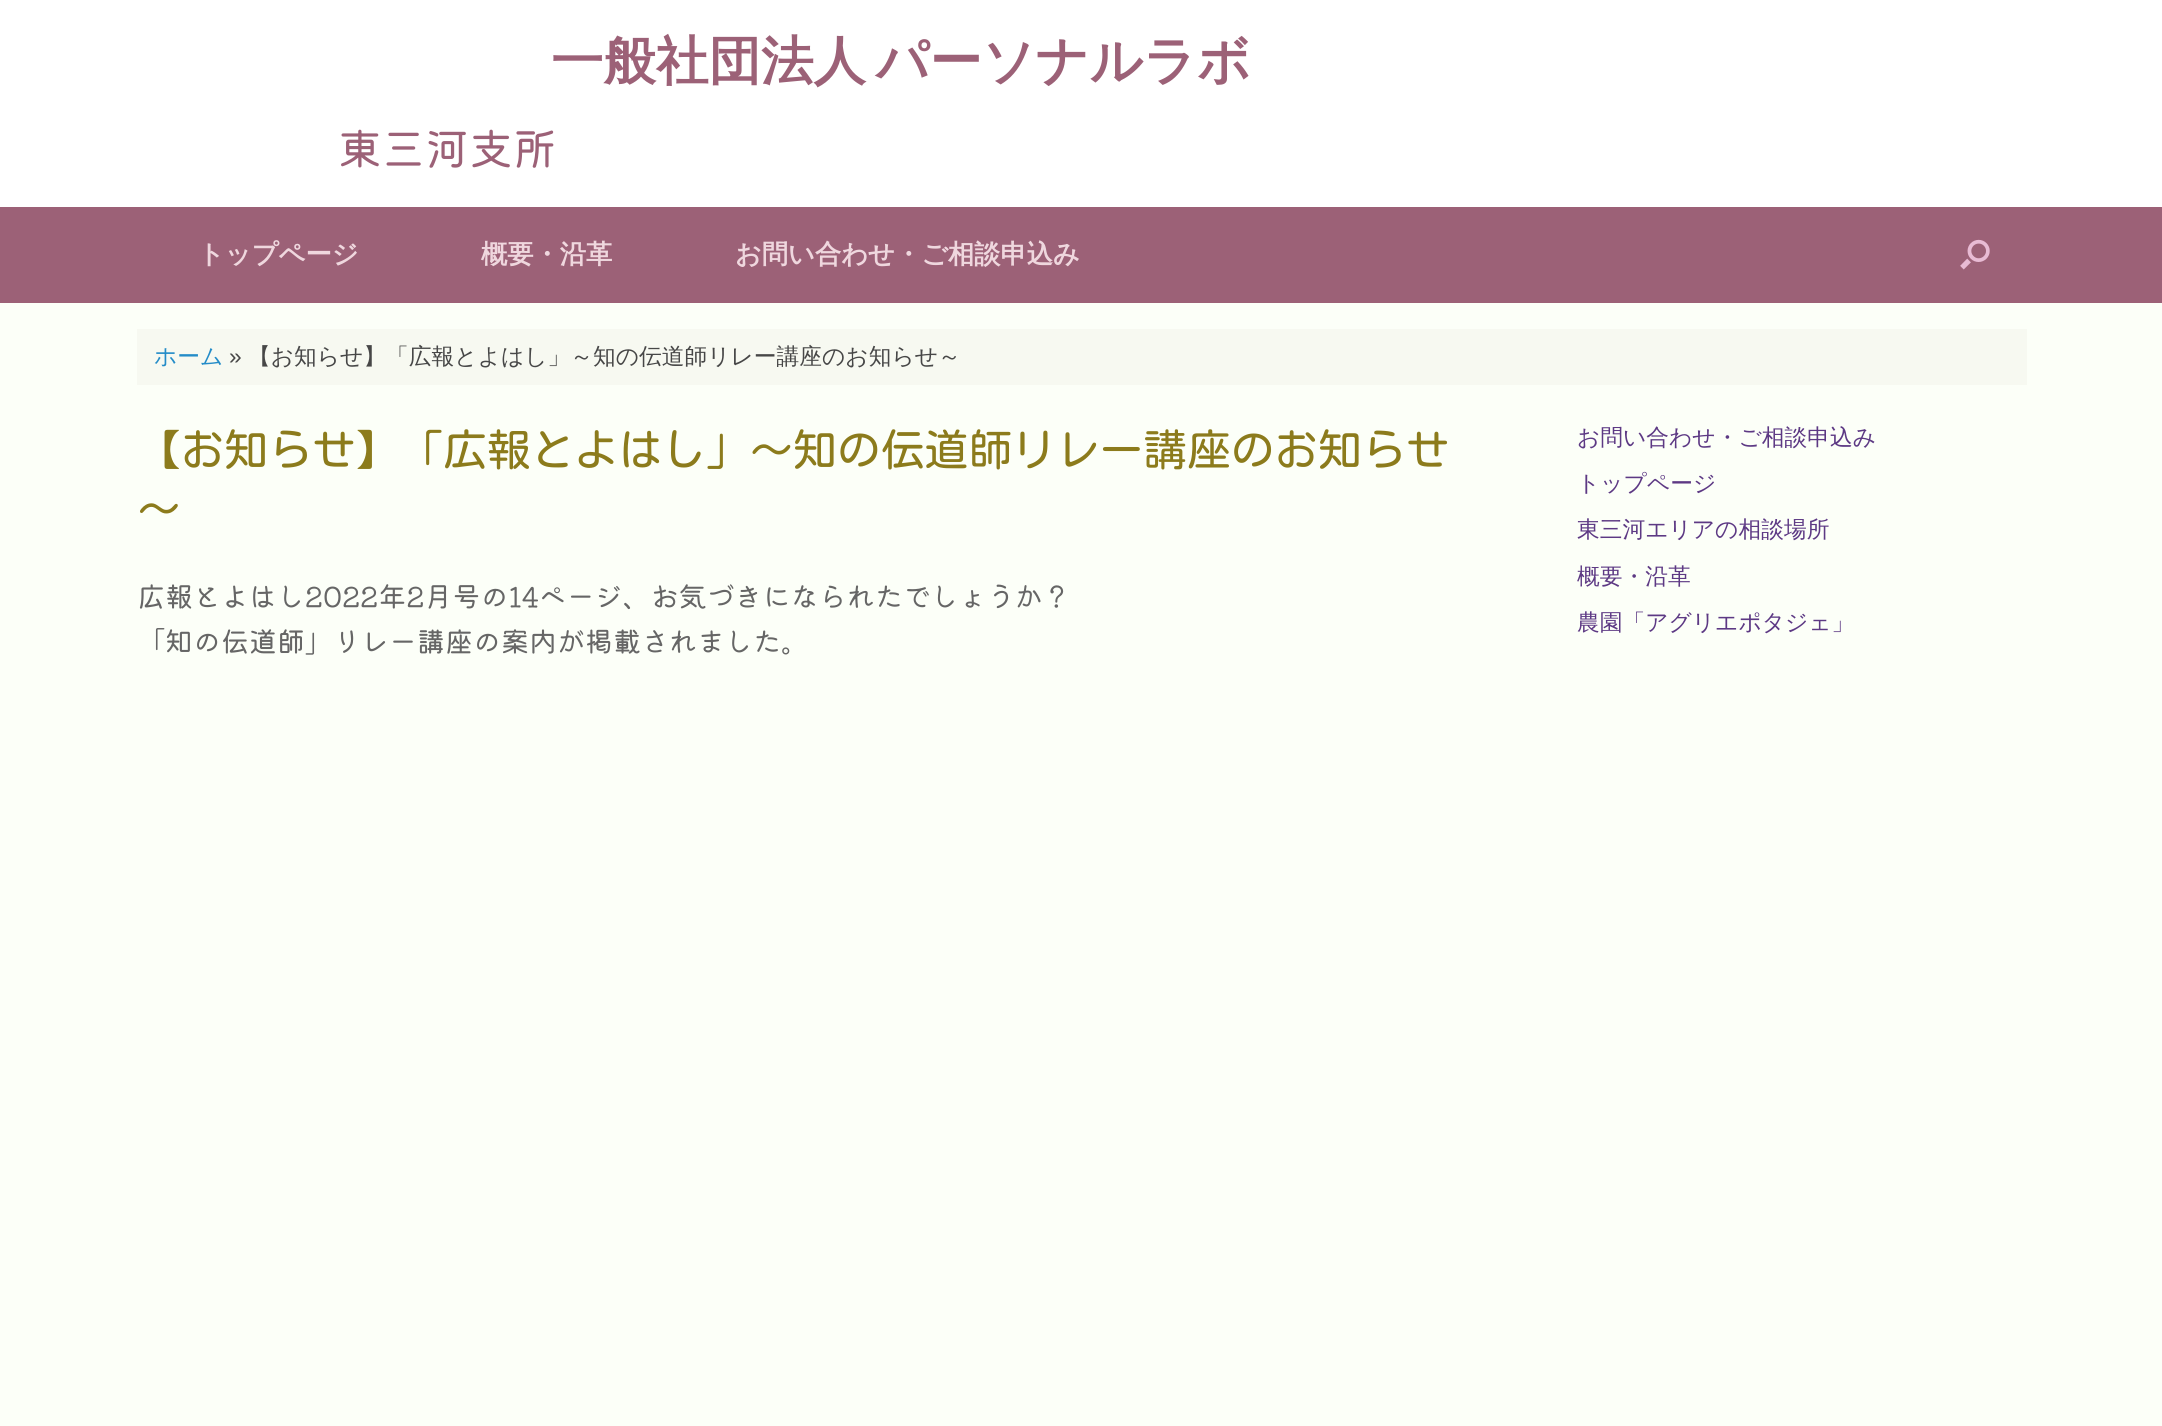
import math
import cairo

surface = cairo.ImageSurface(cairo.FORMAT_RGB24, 2162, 1426)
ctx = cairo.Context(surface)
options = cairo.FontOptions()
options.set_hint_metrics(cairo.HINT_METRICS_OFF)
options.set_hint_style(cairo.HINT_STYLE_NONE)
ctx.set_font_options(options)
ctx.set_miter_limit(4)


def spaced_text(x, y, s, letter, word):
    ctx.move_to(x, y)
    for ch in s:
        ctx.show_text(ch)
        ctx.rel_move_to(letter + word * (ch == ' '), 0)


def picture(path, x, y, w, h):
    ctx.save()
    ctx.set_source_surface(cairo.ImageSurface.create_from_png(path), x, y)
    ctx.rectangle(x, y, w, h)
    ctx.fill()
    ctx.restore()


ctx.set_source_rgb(1, 1, 1)
ctx.paint()
ctx.select_font_face("WenQuanYi Zen Hei", cairo.FONT_SLANT_NORMAL, cairo.FONT_WEIGHT_BOLD)
ctx.set_font_size(52.5)
ctx.set_source_rgb(0.612, 0.38, 0.467)
spaced_text(551, 79, "一般社団法人 パーソナルラボ", 0, -6)
ctx.select_font_face("Kiwi Maru")
ctx.set_font_size(43.75)
ctx.move_to(338, 165)
ctx.show_text("東三河支所")
ctx.rectangle(0, 207, 2162, 96)
ctx.fill()
ctx.select_font_face("WenQuanYi Zen Hei", cairo.FONT_SLANT_NORMAL, cairo.FONT_WEIGHT_BOLD)
ctx.set_font_size(26.25)
ctx.set_source_rgb(0.937, 0.843, 0.871)
ctx.move_to(198, 263)
ctx.show_text("トップページ")
ctx.move_to(481, 263)
ctx.show_text("概要・沿革")
ctx.move_to(735, 263)
ctx.show_text("お問い合わせ・ご相談申込み")
picture("img1.png", 1960, 239, 30, 31)
ctx.set_source_rgb(0.988, 1, 0.969)
ctx.rectangle(0, 303, 2162, 1123)
ctx.fill()
ctx.set_source_rgb(0.965, 0.976, 0.945)
ctx.rectangle(137, 329, 1890, 56)
ctx.fill()
ctx.select_font_face("WenQuanYi Zen Hei Medium")
ctx.set_font_size(22.75)
ctx.set_source_rgb(0.141, 0.549, 0.784)
ctx.move_to(154, 364)
ctx.show_text("ホーム")
ctx.select_font_face("Liberation Sans")
ctx.set_source_rgb(0.278, 0.278, 0.278)
ctx.move_to(229, 364)
ctx.show_text("»")
ctx.select_font_face("WenQuanYi Zen Hei Medium")
ctx.move_to(248, 364)
ctx.show_text("【お知らせ】「広報とよはし」～知の伝道師リレー講座のお知らせ～")
ctx.select_font_face("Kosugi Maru")
ctx.set_font_size(43.75)
ctx.set_source_rgb(0.549, 0.482, 0.11)
ctx.move_to(137, 466)
ctx.show_text("【お知らせ】「広報とよはし」～知の伝道師リレー講座のお知らせ")
ctx.move_to(137, 525)
ctx.show_text("～")
ctx.select_font_face("Kiwi Maru")
ctx.set_font_size(28)
ctx.set_source_rgb(0.4, 0.4, 0.4)
ctx.move_to(137, 607)
ctx.show_text("広報とよはし2022年2月号の14ページ、お気づきになられたでしょうか？")
ctx.move_to(137, 652)
ctx.show_text("「知の伝道師」リレー講座の案内が掲載されました。")
ctx.select_font_face("WenQuanYi Zen Hei Medium")
ctx.set_font_size(22.75)
ctx.set_source_rgb(0.365, 0.224, 0.518)
ctx.move_to(1577, 445)
ctx.show_text("お問い合わせ・ご相談申込み")
ctx.move_to(1577, 491)
ctx.show_text("トップページ")
ctx.move_to(1577, 537)
ctx.show_text("東三河エリアの相談場所")
ctx.move_to(1577, 584)
ctx.show_text("概要・沿革")
ctx.move_to(1577, 630)
ctx.show_text("農園「アグリエポタジェ」")
surface.write_to_png("page.png")
